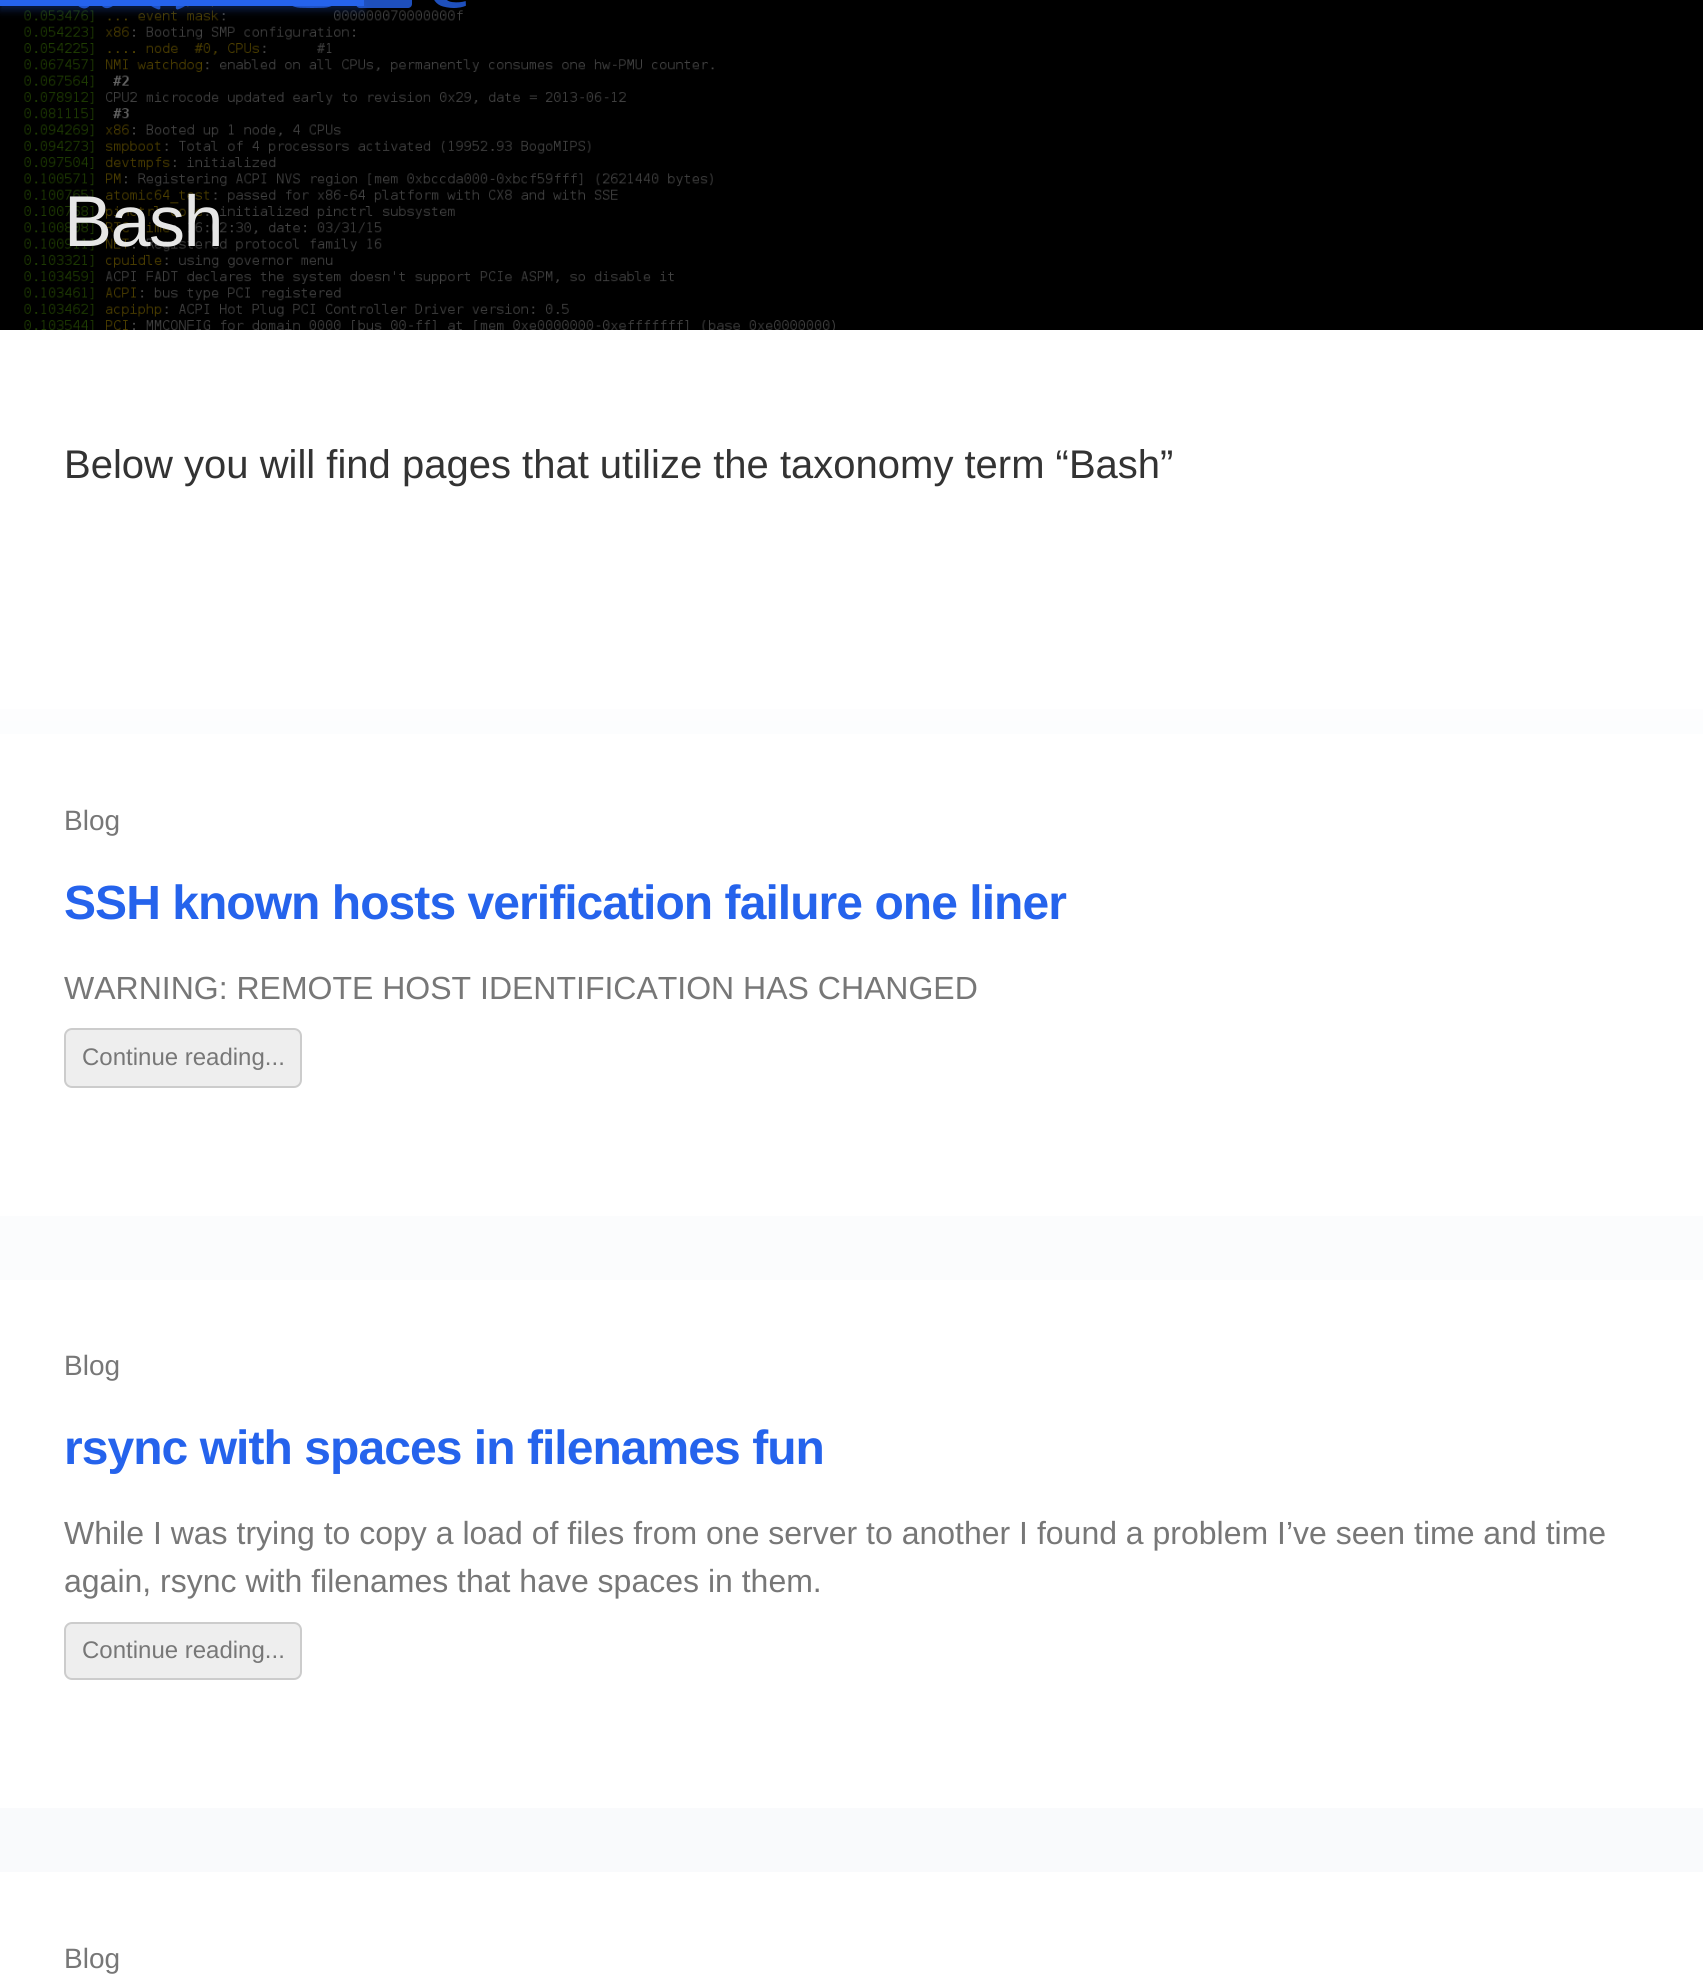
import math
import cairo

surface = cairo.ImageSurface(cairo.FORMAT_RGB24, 1703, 1986)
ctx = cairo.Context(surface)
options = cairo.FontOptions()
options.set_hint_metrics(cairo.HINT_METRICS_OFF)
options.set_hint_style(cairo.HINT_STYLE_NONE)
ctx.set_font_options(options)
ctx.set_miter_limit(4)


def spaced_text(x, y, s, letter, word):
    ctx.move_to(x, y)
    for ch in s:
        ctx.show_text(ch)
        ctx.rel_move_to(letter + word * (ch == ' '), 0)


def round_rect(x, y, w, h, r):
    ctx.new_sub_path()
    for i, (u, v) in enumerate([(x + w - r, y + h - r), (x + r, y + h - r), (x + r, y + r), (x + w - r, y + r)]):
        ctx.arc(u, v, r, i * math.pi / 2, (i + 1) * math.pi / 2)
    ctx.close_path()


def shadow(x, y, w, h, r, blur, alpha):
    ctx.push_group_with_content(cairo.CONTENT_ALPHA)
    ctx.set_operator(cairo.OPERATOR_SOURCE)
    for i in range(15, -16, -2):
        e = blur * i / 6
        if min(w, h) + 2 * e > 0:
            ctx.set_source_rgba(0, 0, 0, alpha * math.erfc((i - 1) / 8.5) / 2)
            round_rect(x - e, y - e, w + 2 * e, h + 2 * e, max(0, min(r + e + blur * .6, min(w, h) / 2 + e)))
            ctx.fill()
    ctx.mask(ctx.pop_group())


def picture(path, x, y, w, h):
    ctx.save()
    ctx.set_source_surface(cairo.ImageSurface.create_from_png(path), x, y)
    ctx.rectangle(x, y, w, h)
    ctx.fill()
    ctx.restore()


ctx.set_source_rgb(1, 1, 1)
ctx.paint()
gradient = cairo.LinearGradient(852, 0, 852, 1986)
gradient.add_color_stop_rgba(0, 1, 1, 1, 1)
gradient.add_color_stop_rgba(1, 0.973, 0.98, 0.988, 1)
ctx.set_source(gradient)
ctx.rectangle(0, 709, 1703, 1163)
ctx.fill()
picture("img1.png", 0, 0, 1703, 330)
picture("img2.png", 78, 6, 35, 3)
picture("img3.png", 151, 6, 34, 4)
picture("img4.png", 292, 6, 40, 2)
picture("img5.png", 356, 0, 56, 8)
ctx.set_source_rgb(0.145, 0.388, 0.922)
shadow(0, 4, 364, 6, 0, 4, 0.3)
ctx.set_source_rgb(0.145, 0.388, 0.922)
ctx.rectangle(0, 0, 364, 6)
ctx.fill()
picture("img6.png", 434, 0, 32, 8)
ctx.select_font_face("Liberation Sans")
ctx.set_font_size(72)
ctx.set_source_rgb(0.902, 0.902, 0.902)
spaced_text(64, 246, "Bash", -1.5, 0)
ctx.set_font_size(40)
ctx.set_source_rgb(0.2, 0.2, 0.2)
ctx.move_to(64, 478)
ctx.show_text("Below you will find pages that utilize the taxonomy term “Bash”")
ctx.set_source_rgb(1, 1, 1)
ctx.rectangle(0, 734, 1703, 482)
ctx.fill()
ctx.set_font_size(28)
ctx.set_source_rgb(0.467, 0.467, 0.467)
ctx.move_to(64, 830)
ctx.show_text("Blog")
ctx.select_font_face("Liberation Sans", cairo.FONT_SLANT_NORMAL, cairo.FONT_WEIGHT_BOLD)
ctx.set_font_size(48)
ctx.set_source_rgb(0.145, 0.388, 0.922)
spaced_text(64, 919, "SSH known hosts verification failure one liner", -0.95, 0)
ctx.select_font_face("Liberation Sans")
ctx.set_font_size(32)
ctx.set_source_rgb(0.467, 0.467, 0.467)
ctx.move_to(64, 999)
ctx.show_text("WARNING: REMOTE HOST IDENTIFICATION HAS CHANGED")
ctx.set_source_rgb(0.933, 0.933, 0.933)
round_rect(65, 1029, 236, 58, 7)
ctx.fill_preserve()
ctx.set_source_rgb(0.8, 0.8, 0.8)
ctx.stroke()
ctx.set_font_size(24)
ctx.set_source_rgb(0.467, 0.467, 0.467)
ctx.move_to(82, 1065)
ctx.show_text("Continue reading...")
ctx.set_source_rgb(1, 1, 1)
ctx.rectangle(0, 1280, 1703, 528)
ctx.fill()
ctx.set_font_size(28)
ctx.set_source_rgb(0.467, 0.467, 0.467)
ctx.move_to(64, 1375)
ctx.show_text("Blog")
ctx.select_font_face("Liberation Sans", cairo.FONT_SLANT_NORMAL, cairo.FONT_WEIGHT_BOLD)
ctx.set_font_size(48)
ctx.set_source_rgb(0.145, 0.388, 0.922)
spaced_text(64, 1464, "rsync with spaces in filenames fun", -0.95, 0)
ctx.select_font_face("Liberation Sans")
ctx.set_font_size(32)
ctx.set_source_rgb(0.467, 0.467, 0.467)
ctx.move_to(64, 1544)
ctx.show_text("While I was trying to copy a load of files from one server to another I found a problem I’ve seen time and time")
ctx.move_to(64, 1592)
ctx.show_text("again, rsync with filenames that have spaces in them.")
ctx.set_source_rgb(0.933, 0.933, 0.933)
round_rect(65, 1623, 236, 56, 7)
ctx.fill_preserve()
ctx.set_source_rgb(0.8, 0.8, 0.8)
ctx.stroke()
ctx.set_font_size(24)
ctx.set_source_rgb(0.467, 0.467, 0.467)
ctx.move_to(82, 1658)
ctx.show_text("Continue reading...")
ctx.set_font_size(28)
ctx.move_to(64, 1968)
ctx.show_text("Blog")
surface.write_to_png("page.png")
